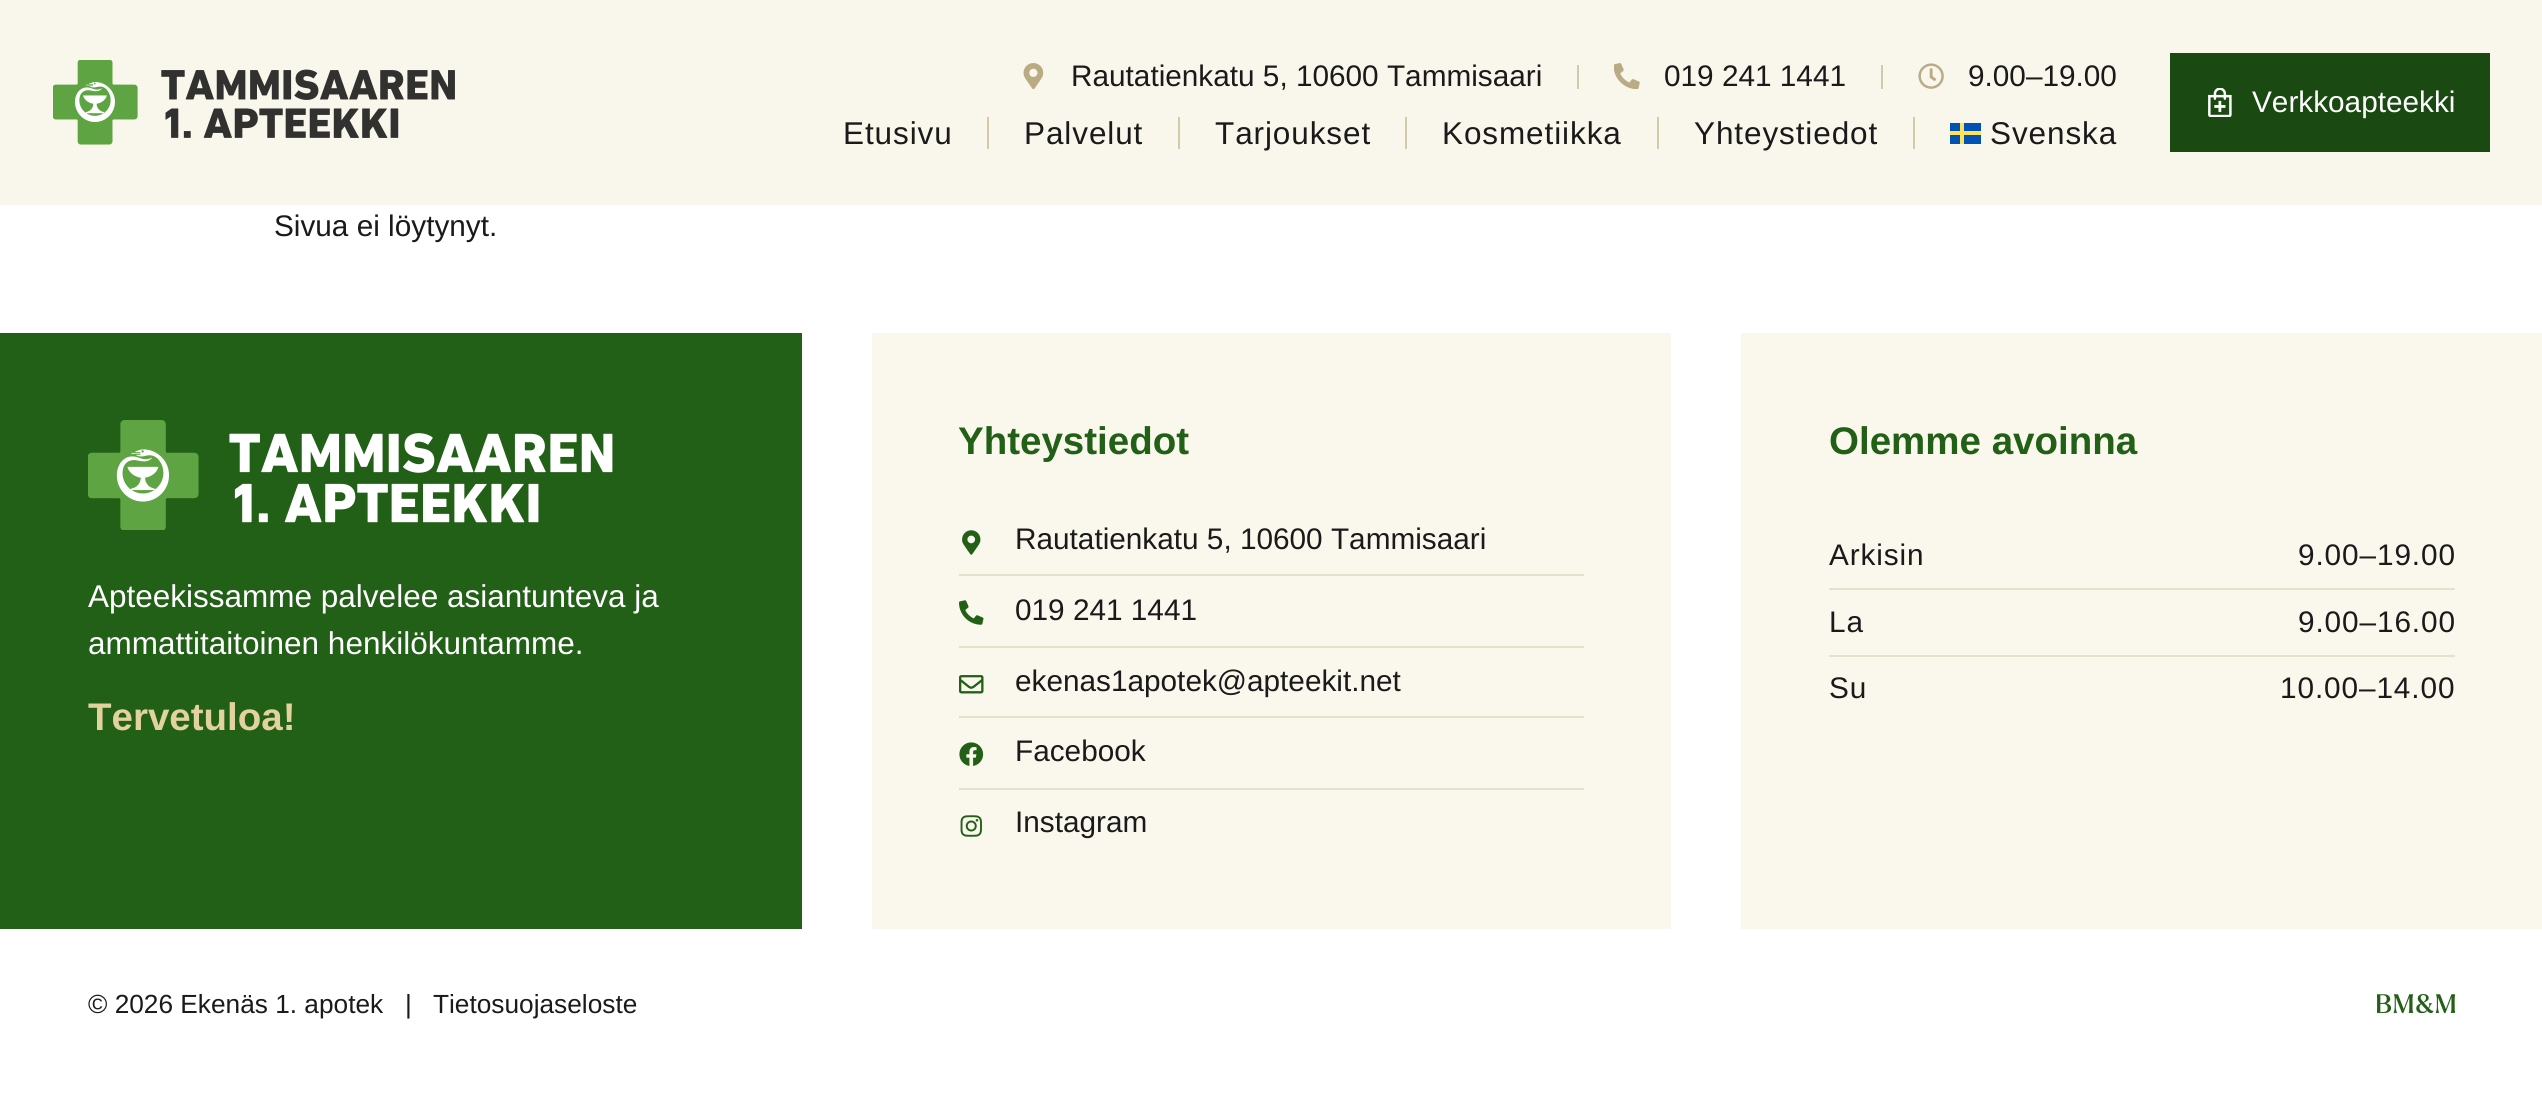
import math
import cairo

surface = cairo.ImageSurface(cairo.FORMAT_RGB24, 2542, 1100)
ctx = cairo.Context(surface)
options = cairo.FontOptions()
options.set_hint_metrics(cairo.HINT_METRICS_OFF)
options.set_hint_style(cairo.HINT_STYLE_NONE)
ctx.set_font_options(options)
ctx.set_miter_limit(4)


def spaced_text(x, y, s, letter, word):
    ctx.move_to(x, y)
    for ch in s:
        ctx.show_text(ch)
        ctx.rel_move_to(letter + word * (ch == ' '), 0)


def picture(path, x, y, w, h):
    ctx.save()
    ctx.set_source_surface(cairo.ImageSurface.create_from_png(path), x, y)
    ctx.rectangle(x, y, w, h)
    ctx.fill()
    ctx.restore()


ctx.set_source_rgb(1, 1, 1)
ctx.paint()
ctx.set_source_rgb(0.973, 0.961, 0.922)
ctx.rectangle(0, 0, 2542, 205)
ctx.fill()
picture("img1.png", 53, 60, 402, 85)
picture("img2.png", 1023, 63, 21, 26)
ctx.select_font_face("Liberation Sans")
ctx.set_font_size(29.75)
ctx.set_source_rgb(0.102, 0.102, 0.102)
ctx.move_to(1071, 86)
ctx.show_text("Rautatienkatu 5, 10600 Tammisaari")
ctx.set_source_rgb(0.827, 0.788, 0.671)
ctx.rectangle(1577, 65, 2, 24)
ctx.fill()
picture("img3.png", 1614, 63, 26, 26)
ctx.set_source_rgb(0.102, 0.102, 0.102)
ctx.move_to(1664, 86)
ctx.show_text("019 241 1441")
ctx.set_source_rgb(0.827, 0.788, 0.671)
ctx.rectangle(1881, 65, 2, 24)
ctx.fill()
picture("img4.png", 1918, 63, 26, 26)
ctx.set_source_rgb(0.102, 0.102, 0.102)
ctx.move_to(1968, 86)
ctx.show_text("9.00–19.00")
ctx.set_font_size(31.5)
spaced_text(843, 144, "Etusivu", 0.9, 0)
ctx.set_source_rgb(0.827, 0.788, 0.671)
ctx.rectangle(987, 117, 2, 32)
ctx.fill()
ctx.set_source_rgb(0.102, 0.102, 0.102)
spaced_text(1024, 144, "Palvelut", 0.9, 0)
ctx.set_source_rgb(0.827, 0.788, 0.671)
ctx.rectangle(1178, 117, 2, 32)
ctx.fill()
ctx.set_source_rgb(0.102, 0.102, 0.102)
spaced_text(1215, 144, "Tarjoukset", 0.9, 0)
ctx.set_source_rgb(0.827, 0.788, 0.671)
ctx.rectangle(1405, 117, 2, 32)
ctx.fill()
ctx.set_source_rgb(0.102, 0.102, 0.102)
spaced_text(1442, 144, "Kosmetiikka", 0.9, 0)
ctx.set_source_rgb(0.827, 0.788, 0.671)
ctx.rectangle(1657, 117, 2, 32)
ctx.fill()
ctx.set_source_rgb(0.102, 0.102, 0.102)
spaced_text(1694, 144, "Yhteystiedot", 0.9, 0)
ctx.set_source_rgb(0.827, 0.788, 0.671)
ctx.rectangle(1913, 117, 2, 32)
ctx.fill()
ctx.set_source_rgb(0, 0.322, 0.706)
ctx.rectangle(1950, 123, 31, 21)
ctx.fill()
ctx.set_source_rgb(1, 0.882, 0.353)
ctx.rectangle(1960, 123, 4, 21)
ctx.fill()
ctx.rectangle(1950, 131, 31, 4)
ctx.fill()
ctx.set_source_rgb(0.102, 0.102, 0.102)
spaced_text(1990, 144, "Svenska", 0.9, 0)
ctx.set_source_rgb(0.102, 0.286, 0.067)
ctx.rectangle(2170, 53, 320, 99)
ctx.fill()
picture("img5.png", 2208, 88, 24, 29)
ctx.set_font_size(29.75)
ctx.set_source_rgb(1, 1, 1)
ctx.move_to(2252, 112)
ctx.show_text("Verkkoapteekki")
ctx.set_source_rgb(0.102, 0.102, 0.102)
ctx.move_to(274, 236)
ctx.show_text("Sivua ei löytynyt.")
ctx.set_source_rgb(0.133, 0.373, 0.09)
ctx.rectangle(0, 333, 802, 596)
ctx.fill()
picture("img6.png", 88, 420, 525, 110)
ctx.set_font_size(31.5)
ctx.set_source_rgb(1, 1, 1)
ctx.move_to(88, 607)
ctx.show_text("Apteekissamme palvelee asiantunteva ja")
ctx.move_to(88, 654)
ctx.show_text("ammattitaitoinen henkilökuntamme.")
ctx.select_font_face("Liberation Sans", cairo.FONT_SLANT_NORMAL, cairo.FONT_WEIGHT_BOLD)
ctx.set_font_size(38.5)
ctx.set_source_rgb(0.886, 0.824, 0.62)
ctx.move_to(88, 730)
ctx.show_text("Tervetuloa!")
ctx.set_source_rgb(0.98, 0.965, 0.929)
ctx.rectangle(872, 333, 799, 596)
ctx.fill()
ctx.set_source_rgb(0.133, 0.373, 0.09)
ctx.move_to(958, 454)
ctx.show_text("Yhteystiedot")
picture("img7.png", 962, 530, 19, 25)
ctx.select_font_face("Liberation Sans")
ctx.set_font_size(29.75)
ctx.set_source_rgb(0.102, 0.102, 0.102)
ctx.move_to(1015, 549)
ctx.show_text("Rautatienkatu 5, 10600 Tammisaari")
ctx.set_source_rgb(0.906, 0.878, 0.804)
ctx.rectangle(959, 574, 625, 2)
ctx.fill()
picture("img8.png", 959, 600, 25, 25)
ctx.set_source_rgb(0.102, 0.102, 0.102)
ctx.move_to(1015, 620)
ctx.show_text("019 241 1441")
ctx.set_source_rgb(0.906, 0.878, 0.804)
ctx.rectangle(959, 646, 625, 2)
ctx.fill()
picture("img9.png", 959, 675, 25, 19)
ctx.set_source_rgb(0.102, 0.102, 0.102)
ctx.move_to(1015, 691)
ctx.show_text("ekenas1apotek@apteekit.net")
ctx.set_source_rgb(0.906, 0.878, 0.804)
ctx.rectangle(959, 716, 625, 2)
ctx.fill()
picture("img10.png", 959, 742, 25, 24)
ctx.set_source_rgb(0.102, 0.102, 0.102)
ctx.move_to(1015, 761)
ctx.show_text("Facebook")
ctx.set_source_rgb(0.906, 0.878, 0.804)
ctx.rectangle(959, 788, 625, 2)
ctx.fill()
picture("img11.png", 960, 815, 22, 22)
ctx.set_source_rgb(0.102, 0.102, 0.102)
ctx.move_to(1015, 832)
ctx.show_text("Instagram")
ctx.set_source_rgb(0.98, 0.965, 0.929)
ctx.rectangle(1741, 333, 801, 596)
ctx.fill()
ctx.select_font_face("Liberation Sans", cairo.FONT_SLANT_NORMAL, cairo.FONT_WEIGHT_BOLD)
ctx.set_font_size(38.5)
ctx.set_source_rgb(0.133, 0.373, 0.09)
ctx.move_to(1829, 454)
ctx.show_text("Olemme avoinna")
ctx.set_source_rgb(0.906, 0.878, 0.804)
ctx.rectangle(1829, 588, 626, 2)
ctx.fill()
ctx.select_font_face("Liberation Sans")
ctx.set_font_size(29.75)
ctx.set_source_rgb(0.102, 0.102, 0.102)
spaced_text(1829, 565, "Arkisin", 0.9, 0)
spaced_text(2298, 565, "9.00–19.00", 0.9, 0)
ctx.set_source_rgb(0.906, 0.878, 0.804)
ctx.rectangle(1829, 655, 626, 2)
ctx.fill()
ctx.set_source_rgb(0.102, 0.102, 0.102)
spaced_text(1829, 632, "La", 0.9, 0)
spaced_text(2298, 632, "9.00–16.00", 0.9, 0)
spaced_text(1829, 698, "Su", 0.9, 0)
spaced_text(2280, 698, "10.00–14.00", 0.9, 0)
ctx.set_font_size(26.25)
ctx.move_to(88, 1013)
ctx.show_text("© 2026 Ekenäs 1. apotek   |")
ctx.move_to(433, 1013)
ctx.show_text("Tietosuojaseloste")
picture("img12.png", 2377, 994, 78, 19)
surface.write_to_png("page.png")
